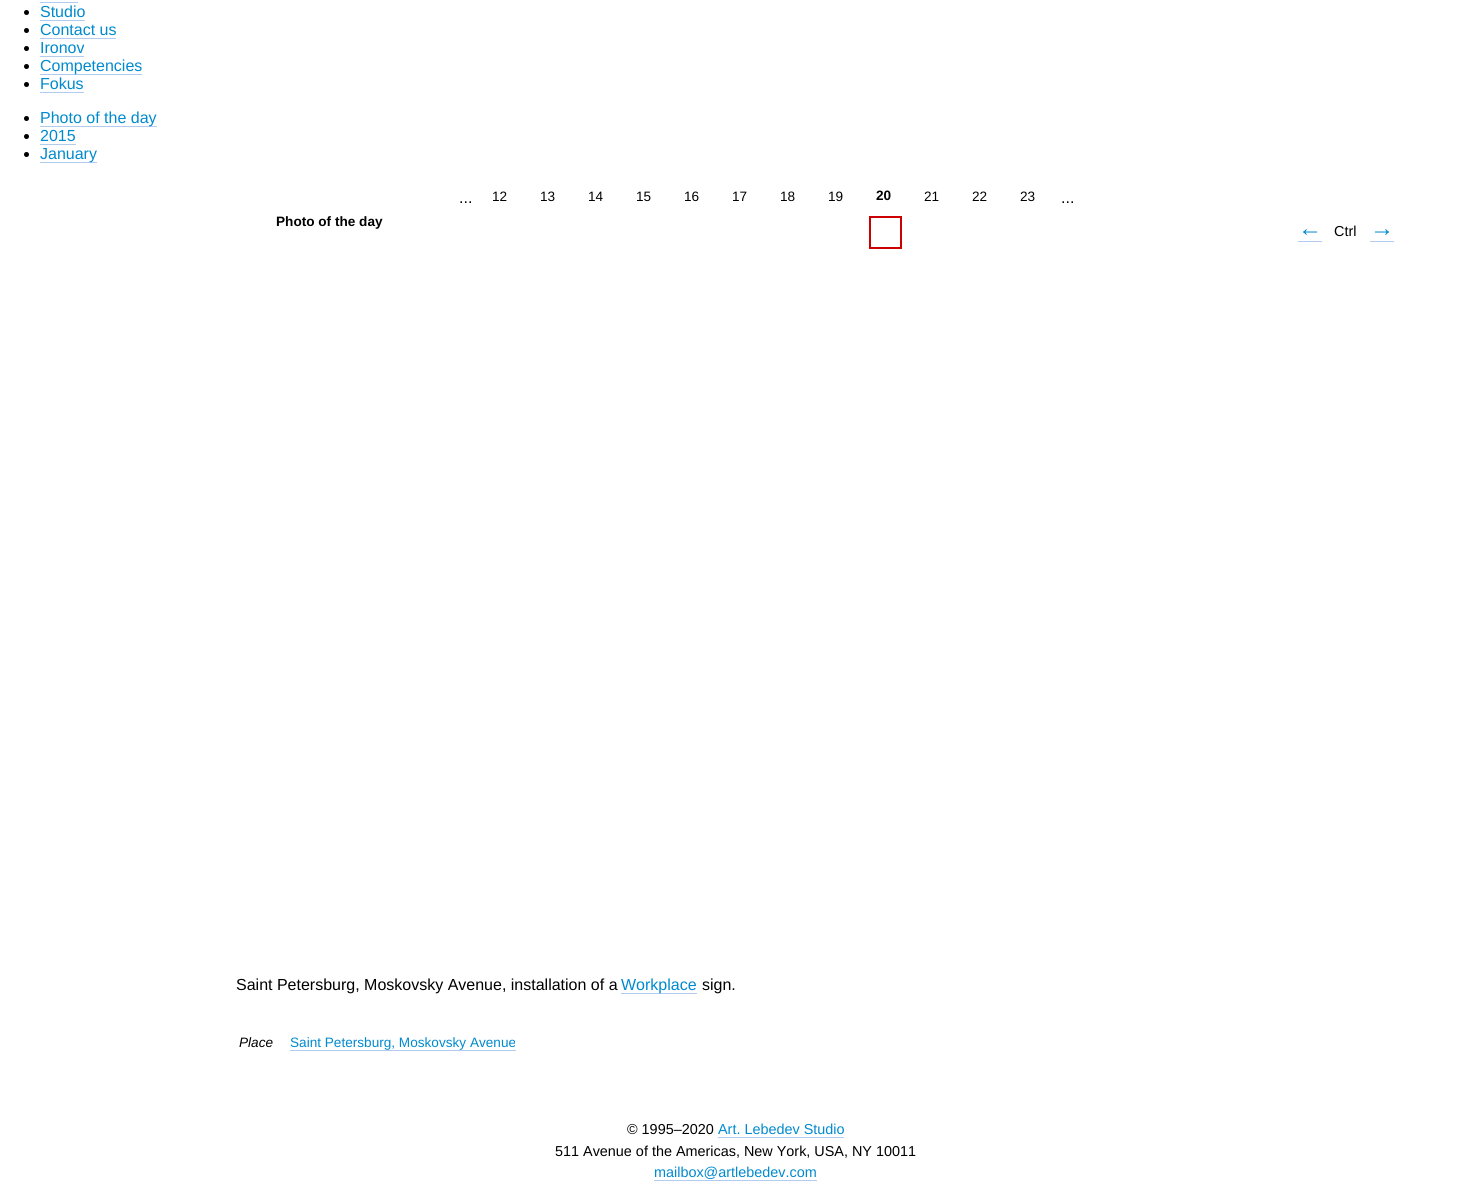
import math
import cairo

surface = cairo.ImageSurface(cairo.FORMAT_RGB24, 1471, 1197)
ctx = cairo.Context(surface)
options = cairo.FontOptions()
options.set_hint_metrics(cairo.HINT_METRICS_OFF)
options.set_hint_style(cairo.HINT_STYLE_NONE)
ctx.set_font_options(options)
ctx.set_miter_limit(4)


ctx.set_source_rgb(1, 1, 1)
ctx.paint()
ctx.set_source_rgb(0.698, 0.8, 0.941)
ctx.rectangle(40, 2, 38, 1)
ctx.fill()
ctx.set_source_rgb(0, 0, 0)
ctx.arc(26.5, 12.5, 2.5, 0, 2 * math.pi)
ctx.fill()
ctx.select_font_face("Liberation Sans")
ctx.set_font_size(16)
ctx.set_source_rgb(0, 0.541, 0.808)
ctx.move_to(40, 17)
ctx.show_text("Studio")
ctx.set_source_rgb(0.698, 0.8, 0.941)
ctx.rectangle(40, 20, 45, 1)
ctx.fill()
ctx.set_source_rgb(0, 0, 0)
ctx.arc(26.5, 30.5, 2.5, 0, 2 * math.pi)
ctx.fill()
ctx.set_source_rgb(0, 0.541, 0.808)
ctx.move_to(40, 35)
ctx.show_text("Contact us")
ctx.set_source_rgb(0.698, 0.8, 0.941)
ctx.rectangle(40, 38, 76, 1)
ctx.fill()
ctx.set_source_rgb(0, 0, 0)
ctx.arc(26.5, 48.5, 2.5, 0, 2 * math.pi)
ctx.fill()
ctx.set_source_rgb(0, 0.541, 0.808)
ctx.move_to(40, 53)
ctx.show_text("Ironov")
ctx.set_source_rgb(0.698, 0.8, 0.941)
ctx.rectangle(40, 56, 44, 1)
ctx.fill()
ctx.set_source_rgb(0, 0, 0)
ctx.arc(26.5, 66.5, 2.5, 0, 2 * math.pi)
ctx.fill()
ctx.set_source_rgb(0.698, 0.8, 0.941)
ctx.rectangle(40, 74, 102, 1)
ctx.fill()
ctx.set_source_rgb(0, 0.541, 0.808)
ctx.move_to(40, 71)
ctx.show_text("Competencies")
ctx.set_source_rgb(0, 0, 0)
ctx.new_path()
ctx.arc(26.5, 84.5, 2.5, 0, 2 * math.pi)
ctx.fill()
ctx.set_source_rgb(0, 0.541, 0.808)
ctx.move_to(40, 89)
ctx.show_text("Fokus")
ctx.set_source_rgb(0.698, 0.8, 0.941)
ctx.rectangle(40, 92, 44, 1)
ctx.fill()
ctx.set_source_rgb(0, 0, 0)
ctx.arc(26.5, 118.5, 2.5, 0, 2 * math.pi)
ctx.fill()
ctx.set_source_rgb(0.698, 0.8, 0.941)
ctx.rectangle(40, 126, 117, 1)
ctx.fill()
ctx.set_source_rgb(0, 0.541, 0.808)
ctx.move_to(40, 123)
ctx.show_text("Photo of the day")
ctx.set_source_rgb(0, 0, 0)
ctx.new_path()
ctx.arc(26.5, 136.5, 2.5, 0, 2 * math.pi)
ctx.fill()
ctx.set_source_rgb(0, 0.541, 0.808)
ctx.move_to(40, 141)
ctx.show_text("2015")
ctx.set_source_rgb(0.698, 0.8, 0.941)
ctx.rectangle(40, 144, 36, 1)
ctx.fill()
ctx.set_source_rgb(0, 0, 0)
ctx.arc(26.5, 154.5, 2.5, 0, 2 * math.pi)
ctx.fill()
ctx.set_source_rgb(0.698, 0.8, 0.941)
ctx.rectangle(40, 162, 57, 1)
ctx.fill()
ctx.set_source_rgb(0, 0.541, 0.808)
ctx.move_to(40, 159)
ctx.show_text("January")
ctx.set_source_rgb(0, 0, 0)
ctx.move_to(459, 203)
ctx.show_text("...")
ctx.set_font_size(13.6)
ctx.move_to(492, 201)
ctx.show_text("12")
ctx.move_to(540, 201)
ctx.show_text("13")
ctx.move_to(588, 201)
ctx.show_text("14")
ctx.move_to(636, 201)
ctx.show_text("15")
ctx.move_to(684, 201)
ctx.show_text("16")
ctx.move_to(732, 201)
ctx.show_text("17")
ctx.move_to(780, 201)
ctx.show_text("18")
ctx.move_to(828, 201)
ctx.show_text("19")
ctx.select_font_face("Liberation Sans", cairo.FONT_SLANT_NORMAL, cairo.FONT_WEIGHT_BOLD)
ctx.move_to(876, 200)
ctx.show_text("20")
ctx.select_font_face("Liberation Sans")
ctx.move_to(924, 201)
ctx.show_text("21")
ctx.move_to(972, 201)
ctx.show_text("22")
ctx.move_to(1020, 201)
ctx.show_text("23")
ctx.set_font_size(16)
ctx.move_to(1061, 203)
ctx.show_text("...")
ctx.select_font_face("Liberation Sans", cairo.FONT_SLANT_NORMAL, cairo.FONT_WEIGHT_BOLD)
ctx.set_font_size(13.6)
ctx.move_to(276, 226)
ctx.show_text("Photo of the day")
ctx.rectangle(870, 217, 31, 31)
ctx.set_source_rgb(0.8, 0, 0)
ctx.stroke()
ctx.set_font_size(24)
ctx.set_source_rgb(0, 0.541, 0.808)
ctx.move_to(1298, 236)
ctx.show_text("←")
ctx.set_source_rgb(0.698, 0.8, 0.941)
ctx.rectangle(1298, 241, 24, 1)
ctx.fill()
ctx.select_font_face("Liberation Sans")
ctx.set_font_size(14.4)
ctx.set_source_rgb(0, 0, 0)
ctx.move_to(1334, 236)
ctx.show_text("Ctrl")
ctx.select_font_face("Liberation Sans", cairo.FONT_SLANT_NORMAL, cairo.FONT_WEIGHT_BOLD)
ctx.set_font_size(24)
ctx.set_source_rgb(0, 0.541, 0.808)
ctx.move_to(1370, 236)
ctx.show_text("→")
ctx.set_source_rgb(0.698, 0.8, 0.941)
ctx.rectangle(1370, 241, 24, 1)
ctx.fill()
ctx.select_font_face("Liberation Sans")
ctx.set_font_size(16)
ctx.set_source_rgb(0, 0, 0)
ctx.move_to(236, 990)
ctx.show_text("Saint Petersburg, Moskovsky Avenue, installation of a")
ctx.set_source_rgb(0.698, 0.8, 0.941)
ctx.rectangle(621, 993, 76, 1)
ctx.fill()
ctx.set_source_rgb(0, 0.541, 0.808)
ctx.move_to(621, 990)
ctx.show_text("Workplace")
ctx.set_source_rgb(0, 0, 0)
ctx.move_to(702, 990)
ctx.show_text("sign.")
ctx.select_font_face("Liberation Sans", cairo.FONT_SLANT_ITALIC)
ctx.set_font_size(13.6)
ctx.move_to(239, 1047)
ctx.show_text("Place")
ctx.select_font_face("Liberation Sans")
ctx.set_source_rgb(0, 0.541, 0.808)
ctx.move_to(290, 1047)
ctx.show_text("Saint Petersburg, Moskovsky Avenue")
ctx.set_source_rgb(0.698, 0.8, 0.941)
ctx.rectangle(290, 1050, 226, 1)
ctx.fill()
ctx.set_font_size(14.4)
ctx.set_source_rgb(0, 0, 0)
ctx.move_to(627, 1134)
ctx.show_text("© 1995–2020")
ctx.set_source_rgb(0, 0.541, 0.808)
ctx.move_to(718, 1134)
ctx.show_text("Art. Lebedev Studio")
ctx.set_source_rgb(0.698, 0.8, 0.941)
ctx.rectangle(718, 1137, 126, 1)
ctx.fill()
ctx.set_source_rgb(0, 0, 0)
ctx.move_to(555, 1156)
ctx.show_text("511 Avenue of the Americas, New York, USA, NY 10011")
ctx.set_source_rgb(0, 0.541, 0.808)
ctx.move_to(654, 1177)
ctx.show_text("mailbox@artlebedev.com")
ctx.set_source_rgb(0.698, 0.8, 0.941)
ctx.rectangle(654, 1180, 163, 1)
ctx.fill()
surface.write_to_png("page.png")
